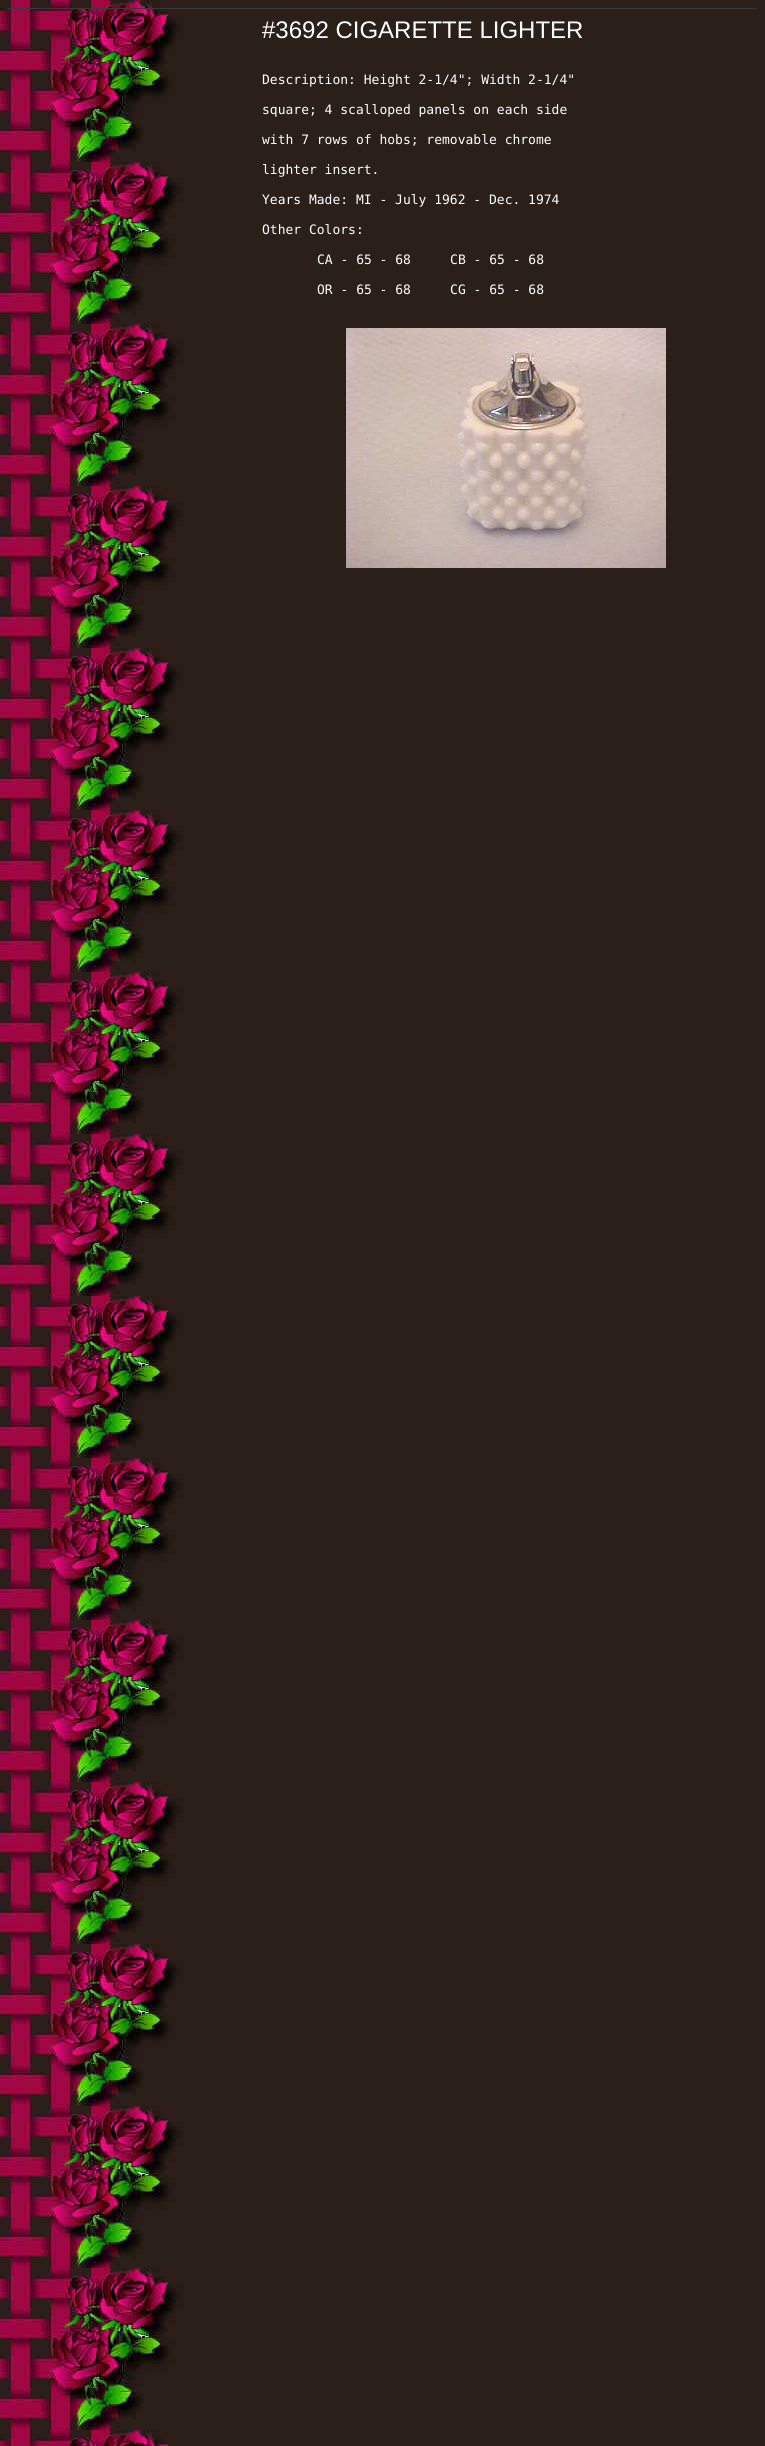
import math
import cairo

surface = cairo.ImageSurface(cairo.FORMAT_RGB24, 765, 2446)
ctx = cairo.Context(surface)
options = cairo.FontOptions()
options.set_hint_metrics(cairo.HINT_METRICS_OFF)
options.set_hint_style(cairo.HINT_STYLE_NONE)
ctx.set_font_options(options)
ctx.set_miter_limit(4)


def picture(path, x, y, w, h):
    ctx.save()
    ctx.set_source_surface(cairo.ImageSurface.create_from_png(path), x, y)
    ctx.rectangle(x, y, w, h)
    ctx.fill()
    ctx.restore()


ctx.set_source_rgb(1, 1, 1)
ctx.paint()
picture("img1.png", 0, 0, 765, 2446)
ctx.set_source_rgb(0.224, 0.224, 0.224)
ctx.rectangle(8, 8, 749, 1)
ctx.fill()
ctx.select_font_face("Liberation Sans")
ctx.set_font_size(24)
ctx.set_source_rgb(1, 1, 1)
ctx.move_to(262, 38)
ctx.show_text("#3692 CIGARETTE LIGHTER")
ctx.select_font_face("DejaVu Sans Mono")
ctx.set_font_size(13)
ctx.move_to(262, 84)
ctx.show_text("Description: Height 2-1/4\"; Width 2-1/4\"")
ctx.move_to(262, 114)
ctx.show_text("square; 4 scalloped panels on each side")
ctx.move_to(262, 144)
ctx.show_text("with 7 rows of hobs; removable chrome")
ctx.move_to(262, 174)
ctx.show_text("lighter insert.")
ctx.move_to(262, 204)
ctx.show_text("Years Made: MI - July 1962 - Dec. 1974")
ctx.move_to(262, 234)
ctx.show_text("Other Colors:")
ctx.move_to(317, 264)
ctx.show_text("CA - 65 - 68     CB - 65 - 68")
ctx.move_to(317, 294)
ctx.show_text("OR - 65 - 68     CG - 65 - 68")
picture("img2.png", 346, 328, 320, 240)
surface.write_to_png("page.png")
